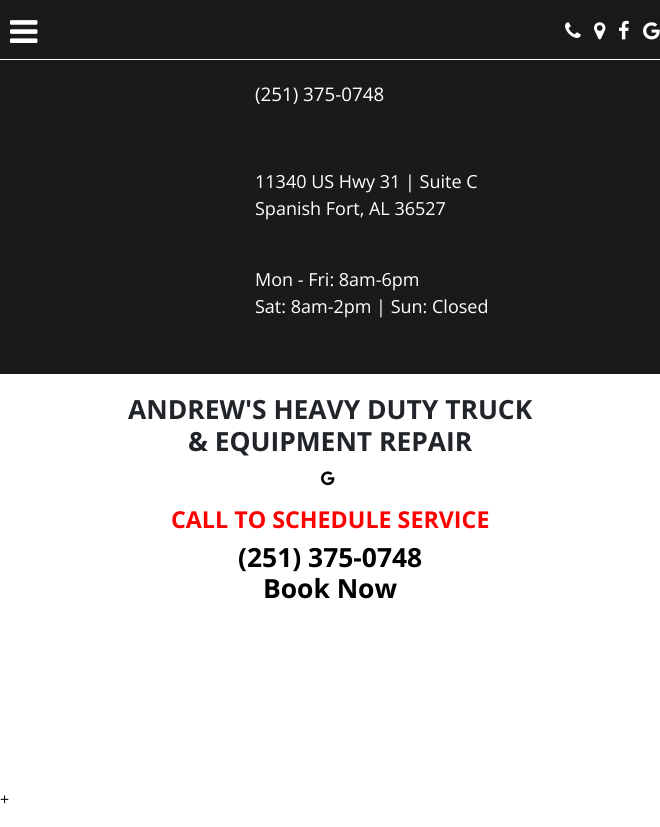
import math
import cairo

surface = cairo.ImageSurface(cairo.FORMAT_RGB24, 660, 827)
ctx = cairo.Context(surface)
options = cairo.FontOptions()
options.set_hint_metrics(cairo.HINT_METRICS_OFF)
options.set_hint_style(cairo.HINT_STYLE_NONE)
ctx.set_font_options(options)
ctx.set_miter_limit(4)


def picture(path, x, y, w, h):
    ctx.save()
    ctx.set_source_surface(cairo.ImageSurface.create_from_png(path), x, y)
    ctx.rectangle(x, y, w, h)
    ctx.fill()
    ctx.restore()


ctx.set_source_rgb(0.102, 0.102, 0.102)
ctx.paint()
picture("img1.png", 10, 20, 28, 23)
picture("img2.png", 565, 22, 16, 16)
picture("img3.png", 594, 22, 12, 18)
picture("img4.png", 619, 20, 10, 20)
picture("img5.png", 643, 22, 17, 18)
ctx.set_source_rgb(1, 1, 1)
ctx.rectangle(0, 59, 660, 1)
ctx.fill()
ctx.rectangle(0, 374, 660, 453)
ctx.fill()
ctx.select_font_face("Open Sans")
ctx.set_font_size(18.75)
ctx.move_to(255, 101)
ctx.show_text("(251) 375-0748")
ctx.set_font_size(18)
ctx.move_to(255, 188)
ctx.show_text("11340 US Hwy 31 | Suite C")
ctx.move_to(255, 215)
ctx.show_text("Spanish Fort, AL 36527")
ctx.move_to(255, 286)
ctx.show_text("Mon - Fri: 8am-6pm")
ctx.move_to(255, 313)
ctx.show_text("Sat: 8am-2pm | Sun: Closed")
ctx.select_font_face("Open Sans", cairo.FONT_SLANT_NORMAL, cairo.FONT_WEIGHT_BOLD)
ctx.set_font_size(26.4)
ctx.set_source_rgb(0.129, 0.145, 0.161)
ctx.move_to(128, 419)
ctx.show_text("ANDREW'S HEAVY DUTY TRUCK")
ctx.move_to(188, 451)
ctx.show_text("& EQUIPMENT REPAIR")
picture("img6.png", 321, 471, 14, 15)
ctx.set_font_size(23.25)
ctx.set_source_rgb(1, 0, 0)
ctx.move_to(171, 528)
ctx.show_text("CALL TO SCHEDULE SERVICE")
ctx.set_font_size(26.4)
ctx.set_source_rgb(0, 0, 0)
ctx.move_to(238, 567)
ctx.show_text("(251) 375-0748")
ctx.move_to(263, 598)
ctx.show_text("Book Now")
ctx.select_font_face("Open Sans")
ctx.set_font_size(16)
ctx.move_to(0, 805)
ctx.show_text("+")
surface.write_to_png("page.png")
